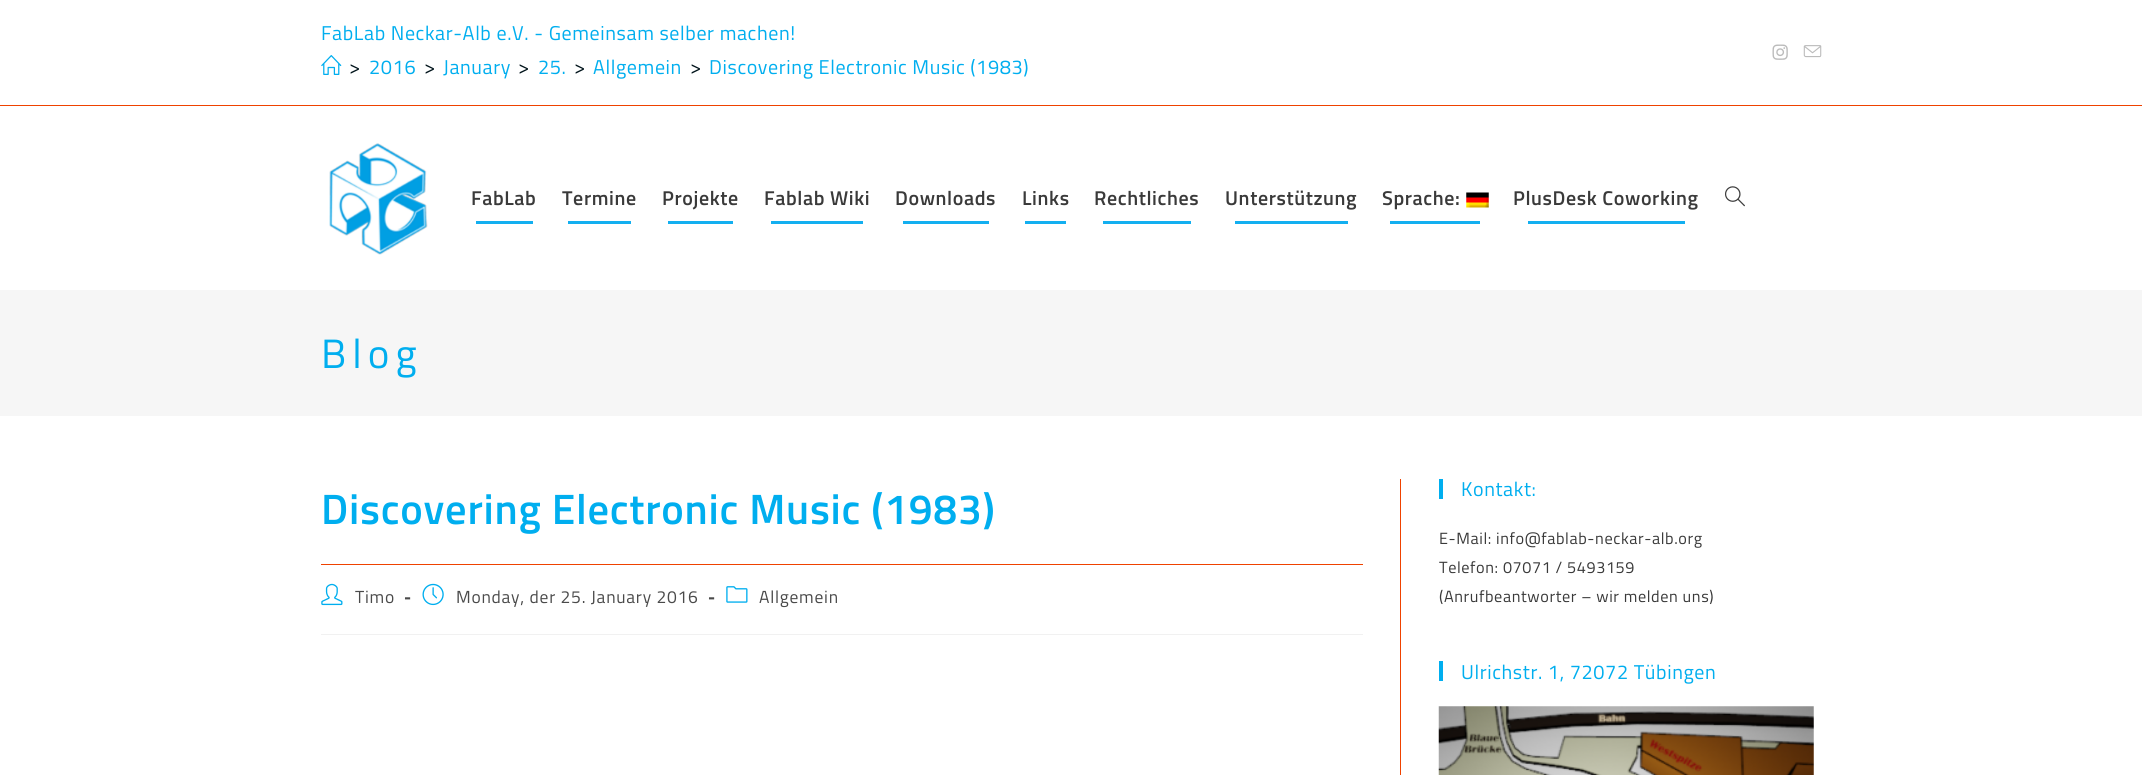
import math
import cairo

surface = cairo.ImageSurface(cairo.FORMAT_RGB24, 2142, 775)
ctx = cairo.Context(surface)
options = cairo.FontOptions()
options.set_hint_metrics(cairo.HINT_METRICS_OFF)
options.set_hint_style(cairo.HINT_STYLE_NONE)
ctx.set_font_options(options)
ctx.set_miter_limit(4)


def spaced_text(x, y, s, letter, word):
    ctx.move_to(x, y)
    for ch in s:
        ctx.show_text(ch)
        ctx.rel_move_to(letter + word * (ch == ' '), 0)


def picture(path, x, y, w, h):
    ctx.save()
    ctx.set_source_surface(cairo.ImageSurface.create_from_png(path), x, y)
    ctx.rectangle(x, y, w, h)
    ctx.fill()
    ctx.restore()


ctx.set_source_rgb(1, 1, 1)
ctx.paint()
ctx.set_source_rgb(0.937, 0.259, 0)
ctx.rectangle(0, 105, 2142, 1)
ctx.fill()
ctx.select_font_face("Titillium Web")
ctx.set_font_size(20)
ctx.set_source_rgb(0, 0.682, 0.937)
spaced_text(321, 40, "FabLab Neckar-Alb e.V. - Gemeinsam selber machen!", 0.6, 0)
picture("img1.png", 321, 55, 21, 20)
ctx.set_source_rgb(0, 0.075, 0.102)
spaced_text(349, 74, ">", 0.6, 0)
ctx.set_source_rgb(0, 0.682, 0.937)
spaced_text(369, 74, "2016", 0.6, 0)
ctx.set_source_rgb(0, 0.075, 0.102)
spaced_text(424, 74, ">", 0.6, 0)
ctx.set_source_rgb(0, 0.682, 0.937)
spaced_text(443, 74, "January", 0.6, 0)
ctx.set_source_rgb(0, 0.075, 0.102)
spaced_text(518, 74, ">", 0.6, 0)
ctx.set_source_rgb(0, 0.682, 0.937)
spaced_text(538, 74, "25.", 0.6, 0)
ctx.set_source_rgb(0, 0.075, 0.102)
spaced_text(574, 74, ">", 0.6, 0)
ctx.set_source_rgb(0, 0.682, 0.937)
spaced_text(593, 74, "Allgemein", 0.6, 0)
ctx.set_source_rgb(0, 0.075, 0.102)
spaced_text(690, 74, ">", 0.6, 0)
ctx.set_source_rgb(0, 0.682, 0.937)
spaced_text(709, 74, "Discovering Electronic Music (1983)", 0.6, 0)
picture("img2.png", 1772, 44, 16, 16)
picture("img3.png", 1803, 45, 19, 13)
picture("img4.png", 329, 143, 99, 112)
ctx.select_font_face("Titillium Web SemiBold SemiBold")
ctx.set_source_rgb(0.227, 0.227, 0.227)
spaced_text(471, 205, "FabLab", 0.6, 0)
ctx.set_source_rgb(0.075, 0.686, 0.941)
ctx.rectangle(476, 221, 57, 3)
ctx.fill()
ctx.set_source_rgb(0.227, 0.227, 0.227)
spaced_text(562, 205, "Termine", 0.6, 0)
ctx.set_source_rgb(0.075, 0.686, 0.941)
ctx.rectangle(568, 221, 63, 3)
ctx.fill()
ctx.set_source_rgb(0.227, 0.227, 0.227)
spaced_text(662, 205, "Projekte", 0.6, 0)
ctx.set_source_rgb(0.075, 0.686, 0.941)
ctx.rectangle(668, 221, 65, 3)
ctx.fill()
ctx.set_source_rgb(0.227, 0.227, 0.227)
spaced_text(764, 205, "Fablab Wiki", 0.6, 0)
ctx.set_source_rgb(0.075, 0.686, 0.941)
ctx.rectangle(771, 221, 92, 3)
ctx.fill()
ctx.set_source_rgb(0.227, 0.227, 0.227)
spaced_text(895, 205, "Downloads", 0.6, 0)
ctx.set_source_rgb(0.075, 0.686, 0.941)
ctx.rectangle(903, 221, 86, 3)
ctx.fill()
ctx.set_source_rgb(0.227, 0.227, 0.227)
spaced_text(1022, 205, "Links", 0.6, 0)
ctx.set_source_rgb(0.075, 0.686, 0.941)
ctx.rectangle(1025, 221, 41, 3)
ctx.fill()
ctx.set_source_rgb(0.227, 0.227, 0.227)
spaced_text(1094, 205, "Rechtliches", 0.6, 0)
ctx.set_source_rgb(0.075, 0.686, 0.941)
ctx.rectangle(1103, 221, 88, 3)
ctx.fill()
ctx.set_source_rgb(0.227, 0.227, 0.227)
spaced_text(1225, 205, "Unterstützung", 0.6, 0)
ctx.set_source_rgb(0.075, 0.686, 0.941)
ctx.rectangle(1235, 221, 113, 3)
ctx.fill()
ctx.set_source_rgb(0.227, 0.227, 0.227)
spaced_text(1382, 205, "Sprache:", 0.6, 0)
picture("img5.png", 1466, 192, 23, 16)
ctx.set_source_rgb(0.075, 0.686, 0.941)
ctx.rectangle(1390, 221, 90, 3)
ctx.fill()
ctx.set_source_rgb(0.227, 0.227, 0.227)
spaced_text(1513, 205, "PlusDesk Coworking", 0.6, 0)
ctx.set_source_rgb(0.075, 0.686, 0.941)
ctx.rectangle(1528, 221, 157, 3)
ctx.fill()
picture("img6.png", 1725, 186, 20, 21)
ctx.set_source_rgb(0.961, 0.961, 0.961)
ctx.rectangle(0, 290, 2142, 126)
ctx.fill()
ctx.select_font_face("Titillium Web")
ctx.set_font_size(41)
ctx.set_source_rgb(0, 0.682, 0.937)
spaced_text(321, 368, "Blog", 6, 0)
ctx.set_source_rgb(0.937, 0.259, 0)
ctx.rectangle(1400, 479, 1, 296)
ctx.fill()
ctx.rectangle(321, 564, 1042, 1)
ctx.fill()
ctx.select_font_face("Titillium Web SemiBold SemiBold")
ctx.set_font_size(42.5)
ctx.set_source_rgb(0, 0.682, 0.937)
spaced_text(321, 524, "Discovering Electronic Music (1983)", 0.75, 0)
ctx.set_source_rgb(0.945, 0.945, 0.945)
ctx.rectangle(321, 634, 1042, 1)
ctx.fill()
picture("img7.png", 321, 583, 22, 23)
ctx.select_font_face("Titillium Web")
ctx.set_font_size(17.5)
ctx.set_source_rgb(0.29, 0.29, 0.29)
spaced_text(355, 603, "Timo", 0.75, 0)
ctx.select_font_face("Titillium Web", cairo.FONT_SLANT_NORMAL, cairo.FONT_WEIGHT_BOLD)
spaced_text(404, 603, "-", 0.75, 0)
picture("img8.png", 422, 583, 22, 23)
ctx.select_font_face("Titillium Web")
spaced_text(456, 603, "Monday, der 25. January 2016", 0.75, 0)
ctx.select_font_face("Titillium Web", cairo.FONT_SLANT_NORMAL, cairo.FONT_WEIGHT_BOLD)
spaced_text(708, 603, "-", 0.75, 0)
picture("img9.png", 726, 586, 22, 17)
ctx.select_font_face("Titillium Web")
spaced_text(759, 603, "Allgemein", 0.75, 0)
ctx.set_source_rgb(0, 0.682, 0.937)
ctx.rectangle(1439, 479, 4, 20)
ctx.fill()
ctx.set_font_size(20)
spaced_text(1461, 496, "Kontakt:", 0.6, 0)
ctx.set_font_size(16.25)
ctx.set_source_rgb(0.227, 0.227, 0.227)
spaced_text(1439, 544, "E-Mail: info@fablab-neckar-alb.org", 0.6, 0)
spaced_text(1439, 573, "Telefon: 07071 / 5493159", 0.6, 0)
spaced_text(1439, 602, "(Anrufbeantworter – wir melden uns)", 0.6, 0)
ctx.set_source_rgb(0, 0.682, 0.937)
ctx.rectangle(1439, 661, 4, 20)
ctx.fill()
ctx.set_font_size(20)
spaced_text(1461, 679, "Ulrichstr. 1, 72072 Tübingen", 0.6, 0)
picture("img10.png", 1438, 706, 376, 69)
surface.write_to_png("page.png")
